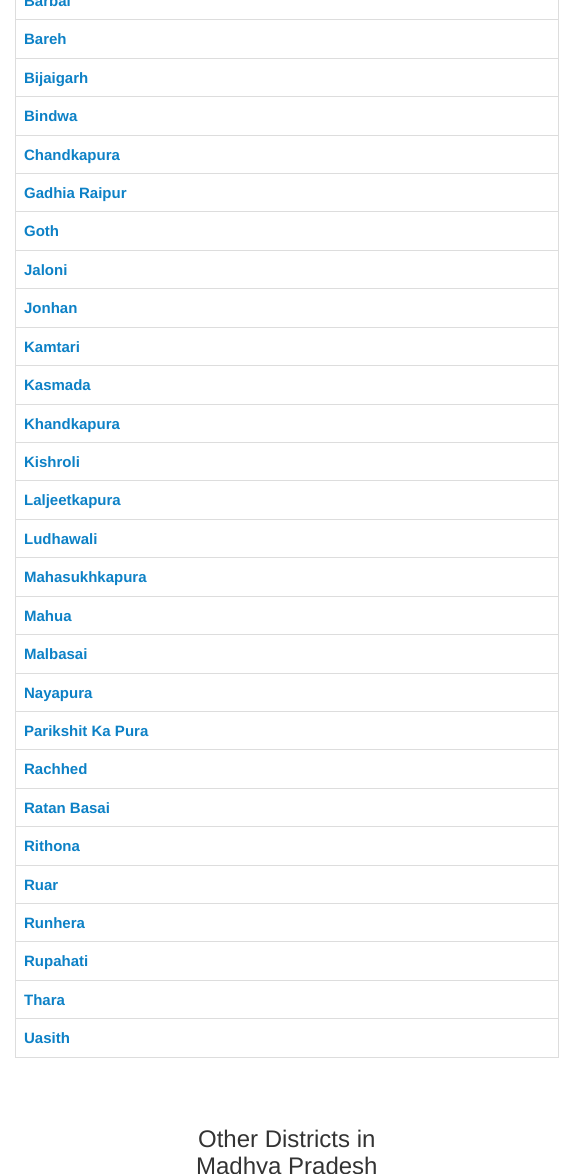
import math
import cairo

surface = cairo.ImageSurface(cairo.FORMAT_RGB24, 574, 1174)
ctx = cairo.Context(surface)
options = cairo.FontOptions()
options.set_hint_metrics(cairo.HINT_METRICS_OFF)
options.set_hint_style(cairo.HINT_STYLE_NONE)
ctx.set_font_options(options)
ctx.set_miter_limit(4)


ctx.set_source_rgb(1, 1, 1)
ctx.paint()
ctx.rectangle(15.5, -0.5, 543, 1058)
ctx.set_source_rgb(0.867, 0.867, 0.867)
ctx.set_line_width(1)
ctx.stroke()
ctx.select_font_face("Liberation Sans", cairo.FONT_SLANT_NORMAL, cairo.FONT_WEIGHT_BOLD)
ctx.set_font_size(15)
ctx.set_source_rgb(0.051, 0.506, 0.776)
ctx.move_to(24, 6)
ctx.show_text("Barbai")
ctx.set_source_rgb(0.867, 0.867, 0.867)
ctx.rectangle(16, 19, 542, 1)
ctx.fill()
ctx.set_source_rgb(0.051, 0.506, 0.776)
ctx.move_to(24, 44)
ctx.show_text("Bareh")
ctx.set_source_rgb(0.867, 0.867, 0.867)
ctx.rectangle(16, 58, 542, 1)
ctx.fill()
ctx.set_source_rgb(0.051, 0.506, 0.776)
ctx.move_to(24, 83)
ctx.show_text("Bijaigarh")
ctx.set_source_rgb(0.867, 0.867, 0.867)
ctx.rectangle(16, 96, 542, 1)
ctx.fill()
ctx.set_source_rgb(0.051, 0.506, 0.776)
ctx.move_to(24, 121)
ctx.show_text("Bindwa")
ctx.set_source_rgb(0.867, 0.867, 0.867)
ctx.rectangle(16, 135, 542, 1)
ctx.fill()
ctx.set_source_rgb(0.051, 0.506, 0.776)
ctx.move_to(24, 160)
ctx.show_text("Chandkapura")
ctx.set_source_rgb(0.867, 0.867, 0.867)
ctx.rectangle(16, 173, 542, 1)
ctx.fill()
ctx.set_source_rgb(0.051, 0.506, 0.776)
ctx.move_to(24, 198)
ctx.show_text("Gadhia Raipur")
ctx.set_source_rgb(0.867, 0.867, 0.867)
ctx.rectangle(16, 211, 542, 1)
ctx.fill()
ctx.set_source_rgb(0.051, 0.506, 0.776)
ctx.move_to(24, 236)
ctx.show_text("Goth")
ctx.set_source_rgb(0.867, 0.867, 0.867)
ctx.rectangle(16, 250, 542, 1)
ctx.fill()
ctx.set_source_rgb(0.051, 0.506, 0.776)
ctx.move_to(24, 275)
ctx.show_text("Jaloni")
ctx.set_source_rgb(0.867, 0.867, 0.867)
ctx.rectangle(16, 288, 542, 1)
ctx.fill()
ctx.set_source_rgb(0.051, 0.506, 0.776)
ctx.move_to(24, 313)
ctx.show_text("Jonhan")
ctx.set_source_rgb(0.867, 0.867, 0.867)
ctx.rectangle(16, 327, 542, 1)
ctx.fill()
ctx.set_source_rgb(0.051, 0.506, 0.776)
ctx.move_to(24, 352)
ctx.show_text("Kamtari")
ctx.set_source_rgb(0.867, 0.867, 0.867)
ctx.rectangle(16, 365, 542, 1)
ctx.fill()
ctx.set_source_rgb(0.051, 0.506, 0.776)
ctx.move_to(24, 390)
ctx.show_text("Kasmada")
ctx.set_source_rgb(0.867, 0.867, 0.867)
ctx.rectangle(16, 404, 542, 1)
ctx.fill()
ctx.set_source_rgb(0.051, 0.506, 0.776)
ctx.move_to(24, 429)
ctx.show_text("Khandkapura")
ctx.set_source_rgb(0.867, 0.867, 0.867)
ctx.rectangle(16, 442, 542, 1)
ctx.fill()
ctx.set_source_rgb(0.051, 0.506, 0.776)
ctx.move_to(24, 467)
ctx.show_text("Kishroli")
ctx.set_source_rgb(0.867, 0.867, 0.867)
ctx.rectangle(16, 480, 542, 1)
ctx.fill()
ctx.set_source_rgb(0.051, 0.506, 0.776)
ctx.move_to(24, 505)
ctx.show_text("Laljeetkapura")
ctx.set_source_rgb(0.867, 0.867, 0.867)
ctx.rectangle(16, 519, 542, 1)
ctx.fill()
ctx.set_source_rgb(0.051, 0.506, 0.776)
ctx.move_to(24, 544)
ctx.show_text("Ludhawali")
ctx.set_source_rgb(0.867, 0.867, 0.867)
ctx.rectangle(16, 557, 542, 1)
ctx.fill()
ctx.set_source_rgb(0.051, 0.506, 0.776)
ctx.move_to(24, 582)
ctx.show_text("Mahasukhkapura")
ctx.set_source_rgb(0.867, 0.867, 0.867)
ctx.rectangle(16, 596, 542, 1)
ctx.fill()
ctx.set_source_rgb(0.051, 0.506, 0.776)
ctx.move_to(24, 621)
ctx.show_text("Mahua")
ctx.set_source_rgb(0.867, 0.867, 0.867)
ctx.rectangle(16, 634, 542, 1)
ctx.fill()
ctx.set_source_rgb(0.051, 0.506, 0.776)
ctx.move_to(24, 659)
ctx.show_text("Malbasai")
ctx.set_source_rgb(0.867, 0.867, 0.867)
ctx.rectangle(16, 673, 542, 1)
ctx.fill()
ctx.set_source_rgb(0.051, 0.506, 0.776)
ctx.move_to(24, 698)
ctx.show_text("Nayapura")
ctx.set_source_rgb(0.867, 0.867, 0.867)
ctx.rectangle(16, 711, 542, 1)
ctx.fill()
ctx.set_source_rgb(0.051, 0.506, 0.776)
ctx.move_to(24, 736)
ctx.show_text("Parikshit Ka Pura")
ctx.set_source_rgb(0.867, 0.867, 0.867)
ctx.rectangle(16, 749, 542, 1)
ctx.fill()
ctx.set_source_rgb(0.051, 0.506, 0.776)
ctx.move_to(24, 774)
ctx.show_text("Rachhed")
ctx.set_source_rgb(0.867, 0.867, 0.867)
ctx.rectangle(16, 788, 542, 1)
ctx.fill()
ctx.set_source_rgb(0.051, 0.506, 0.776)
ctx.move_to(24, 813)
ctx.show_text("Ratan Basai")
ctx.set_source_rgb(0.867, 0.867, 0.867)
ctx.rectangle(16, 826, 542, 1)
ctx.fill()
ctx.set_source_rgb(0.051, 0.506, 0.776)
ctx.move_to(24, 851)
ctx.show_text("Rithona")
ctx.set_source_rgb(0.867, 0.867, 0.867)
ctx.rectangle(16, 865, 542, 1)
ctx.fill()
ctx.set_source_rgb(0.051, 0.506, 0.776)
ctx.move_to(24, 890)
ctx.show_text("Ruar")
ctx.set_source_rgb(0.867, 0.867, 0.867)
ctx.rectangle(16, 903, 542, 1)
ctx.fill()
ctx.set_source_rgb(0.051, 0.506, 0.776)
ctx.move_to(24, 928)
ctx.show_text("Runhera")
ctx.set_source_rgb(0.867, 0.867, 0.867)
ctx.rectangle(16, 941, 542, 1)
ctx.fill()
ctx.set_source_rgb(0.051, 0.506, 0.776)
ctx.move_to(24, 966)
ctx.show_text("Rupahati")
ctx.set_source_rgb(0.867, 0.867, 0.867)
ctx.rectangle(16, 980, 542, 1)
ctx.fill()
ctx.set_source_rgb(0.051, 0.506, 0.776)
ctx.move_to(24, 1005)
ctx.show_text("Thara")
ctx.set_source_rgb(0.867, 0.867, 0.867)
ctx.rectangle(16, 1018, 542, 1)
ctx.fill()
ctx.set_source_rgb(0.051, 0.506, 0.776)
ctx.move_to(24, 1043)
ctx.show_text("Uasith")
ctx.select_font_face("Liberation Sans")
ctx.set_font_size(24)
ctx.set_source_rgb(0.2, 0.2, 0.2)
ctx.move_to(198, 1147)
ctx.show_text("Other Districts in")
ctx.move_to(196, 1174)
ctx.show_text("Madhya Pradesh")
surface.write_to_png("page.png")
